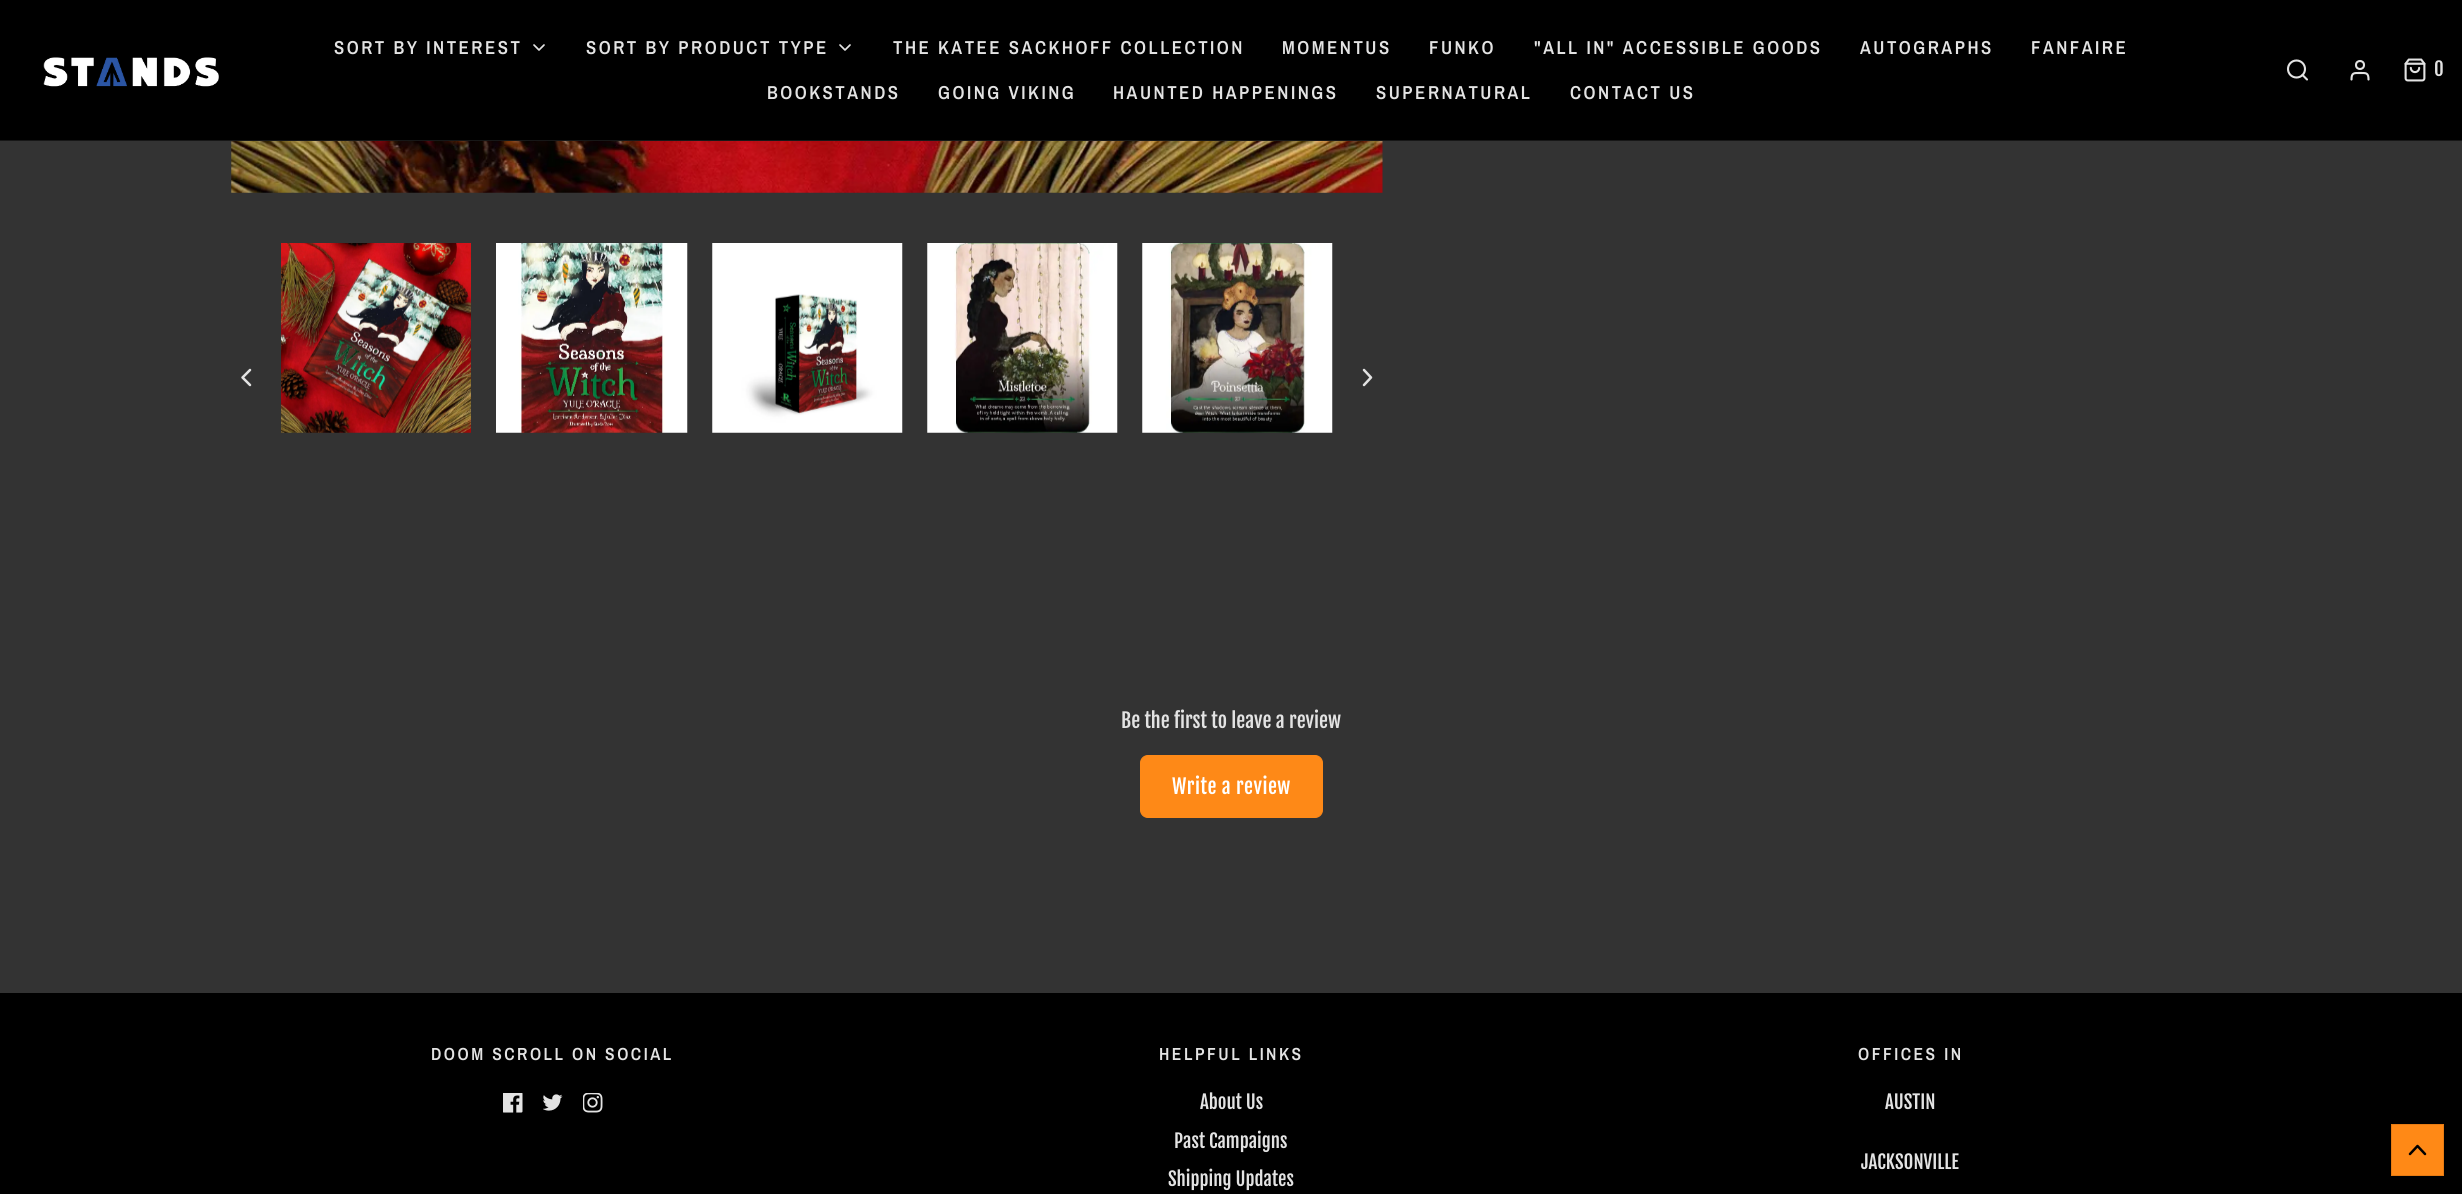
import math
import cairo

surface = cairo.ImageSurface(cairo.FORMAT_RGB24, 2462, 1194)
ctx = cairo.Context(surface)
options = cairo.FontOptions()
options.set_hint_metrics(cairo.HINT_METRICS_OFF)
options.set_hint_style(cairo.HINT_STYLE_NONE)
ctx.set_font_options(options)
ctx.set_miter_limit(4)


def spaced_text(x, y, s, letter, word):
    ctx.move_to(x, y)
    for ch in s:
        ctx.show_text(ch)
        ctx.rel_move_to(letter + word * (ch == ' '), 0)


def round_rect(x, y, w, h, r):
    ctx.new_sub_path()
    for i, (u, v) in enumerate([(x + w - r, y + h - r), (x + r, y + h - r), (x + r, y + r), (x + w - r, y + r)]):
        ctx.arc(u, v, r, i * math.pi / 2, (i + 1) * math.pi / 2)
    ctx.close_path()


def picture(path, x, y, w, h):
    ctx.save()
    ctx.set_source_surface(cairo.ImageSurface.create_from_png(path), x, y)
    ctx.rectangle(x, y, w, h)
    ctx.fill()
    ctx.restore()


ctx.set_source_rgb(0.2, 0.2, 0.2)
ctx.paint()
ctx.set_source_rgb(0, 0, 0)
ctx.rectangle(0, 0, 2462, 140)
ctx.fill()
ctx.set_source_rgb(0.09, 0.09, 0.09)
ctx.rectangle(0, 140, 2462, 1)
ctx.fill()
picture("img1.png", 43, 57, 176, 30)
ctx.select_font_face("Archivo Narrow SemiBold")
ctx.set_font_size(18.75)
ctx.set_source_rgb(0.89, 0.89, 0.89)
spaced_text(334, 54, "SORT BY INTEREST", 2.5, 0)
ctx.new_path()
ctx.move_to(534, 45)
ctx.line_to(539, 50)
ctx.line_to(544, 45)
ctx.set_line_width(1.7)
ctx.set_line_cap(cairo.LINE_CAP_ROUND)
ctx.set_line_join(cairo.LINE_JOIN_ROUND)
ctx.stroke()
spaced_text(586, 54, "SORT BY PRODUCT TYPE", 2.5, 0)
ctx.new_path()
ctx.move_to(840, 45)
ctx.line_to(845, 50)
ctx.line_to(850, 45)
ctx.stroke()
spaced_text(893, 54, "THE KATEE SACKHOFF COLLECTION", 2.5, 0)
spaced_text(1282, 54, "MOMENTUS", 2.5, 0)
spaced_text(1429, 54, "FUNKO", 2.5, 0)
spaced_text(1534, 54, "\"ALL IN\" ACCESSIBLE GOODS", 2.5, 0)
spaced_text(1860, 54, "AUTOGRAPHS", 2.5, 0)
spaced_text(2031, 54, "FANFAIRE", 2.5, 0)
spaced_text(767, 99, "BOOKSTANDS", 2.5, 0)
spaced_text(938, 99, "GOING VIKING", 2.5, 0)
spaced_text(1113, 99, "HAUNTED HAPPENINGS", 2.5, 0)
spaced_text(1376, 99, "SUPERNATURAL", 2.5, 0)
spaced_text(1570, 99, "CONTACT US", 2.5, 0)
ctx.new_path()
ctx.arc(2296.5, 69, 8.5, 0, 2 * math.pi)
ctx.set_line_width(2.1)
ctx.set_line_cap(cairo.LINE_CAP_BUTT)
ctx.set_line_join(cairo.LINE_JOIN_MITER)
ctx.stroke()
ctx.new_path()
ctx.move_to(2307, 79.5)
ctx.line_to(2302.5, 75)
ctx.set_line_cap(cairo.LINE_CAP_ROUND)
ctx.set_line_join(cairo.LINE_JOIN_ROUND)
ctx.stroke()
ctx.new_path()
ctx.move_to(2368.5, 79.5)
ctx.curve_to(2368.5, 72.5, 2366, 73, 2360, 73)
ctx.curve_to(2354, 73, 2351.5, 72.5, 2351.5, 79.5)
ctx.stroke()
ctx.arc(2360, 65, 4, 0, 2 * math.pi)
ctx.set_line_cap(cairo.LINE_CAP_BUTT)
ctx.set_line_join(cairo.LINE_JOIN_MITER)
ctx.stroke()
picture("img2.png", 2404, 58, 22, 24)
ctx.select_font_face("Fjalla One")
ctx.move_to(2434, 76)
ctx.show_text("0")
picture("img3.png", 231, 141, 1152, 52)
ctx.new_path()
ctx.move_to(250, 385)
ctx.line_to(242.5, 377.5)
ctx.line_to(250, 370)
ctx.set_line_width(2.5)
ctx.set_line_cap(cairo.LINE_CAP_ROUND)
ctx.set_line_join(cairo.LINE_JOIN_ROUND)
ctx.stroke()
picture("img4.png", 281, 243, 190, 190)
picture("img5.png", 496, 243, 192, 190)
picture("img6.png", 712, 243, 191, 190)
picture("img7.png", 927, 243, 191, 190)
picture("img8.png", 1142, 243, 191, 190)
ctx.new_path()
ctx.move_to(1364, 385)
ctx.line_to(1371, 377.5)
ctx.line_to(1364, 370)
ctx.stroke()
ctx.set_font_size(20)
ctx.move_to(1121, 728)
ctx.show_text("Be the first to leave a review")
ctx.set_source_rgb(0.996, 0.537, 0.09)
round_rect(1140.5, 755.5, 182, 62, 7.5)
ctx.fill_preserve()
ctx.set_line_width(1)
ctx.set_line_cap(cairo.LINE_CAP_BUTT)
ctx.set_line_join(cairo.LINE_JOIN_MITER)
ctx.stroke()
ctx.set_source_rgb(1, 1, 1)
spaced_text(1172, 794, "Write a review", 0.5, 0)
ctx.set_source_rgb(0, 0, 0)
ctx.rectangle(0, 993, 2462, 201)
ctx.fill()
ctx.select_font_face("Archivo Narrow SemiBold")
ctx.set_font_size(17.5)
ctx.set_source_rgb(0.89, 0.89, 0.89)
spaced_text(431, 1060, "DOOM SCROLL ON SOCIAL", 2.5, 0)
picture("img9.png", 503, 1093, 20, 20)
picture("img10.png", 543, 1094, 20, 17)
picture("img11.png", 583, 1093, 20, 20)
spaced_text(1159, 1060, "HELPFUL LINKS", 2.5, 0)
ctx.select_font_face("Fjalla One")
ctx.set_font_size(18.75)
ctx.move_to(1200, 1109)
ctx.show_text("About Us")
ctx.move_to(1174, 1148)
ctx.show_text("Past Campaigns")
ctx.move_to(1168, 1186)
ctx.show_text("Shipping Updates")
ctx.select_font_face("Archivo Narrow SemiBold")
ctx.set_font_size(17.5)
spaced_text(1858, 1060, "OFFICES IN", 2.5, 0)
ctx.select_font_face("Fjalla One")
ctx.set_font_size(18.75)
ctx.move_to(1885, 1109)
ctx.show_text("AUSTIN")
ctx.move_to(1861, 1169)
ctx.show_text("JACKSONVILLE")
ctx.set_source_rgb(1, 0.537, 0.086)
ctx.rectangle(2391.5, 1124.5, 52, 51)
ctx.fill_preserve()
ctx.set_source_rgb(0.902, 0.482, 0.078)
ctx.stroke()
ctx.new_path()
ctx.move_to(2425, 1154)
ctx.line_to(2417.5, 1146)
ctx.line_to(2410, 1154)
ctx.set_source_rgb(0, 0, 0)
ctx.set_line_width(2.5)
ctx.set_line_cap(cairo.LINE_CAP_ROUND)
ctx.set_line_join(cairo.LINE_JOIN_ROUND)
ctx.stroke()
surface.write_to_png("page.png")
